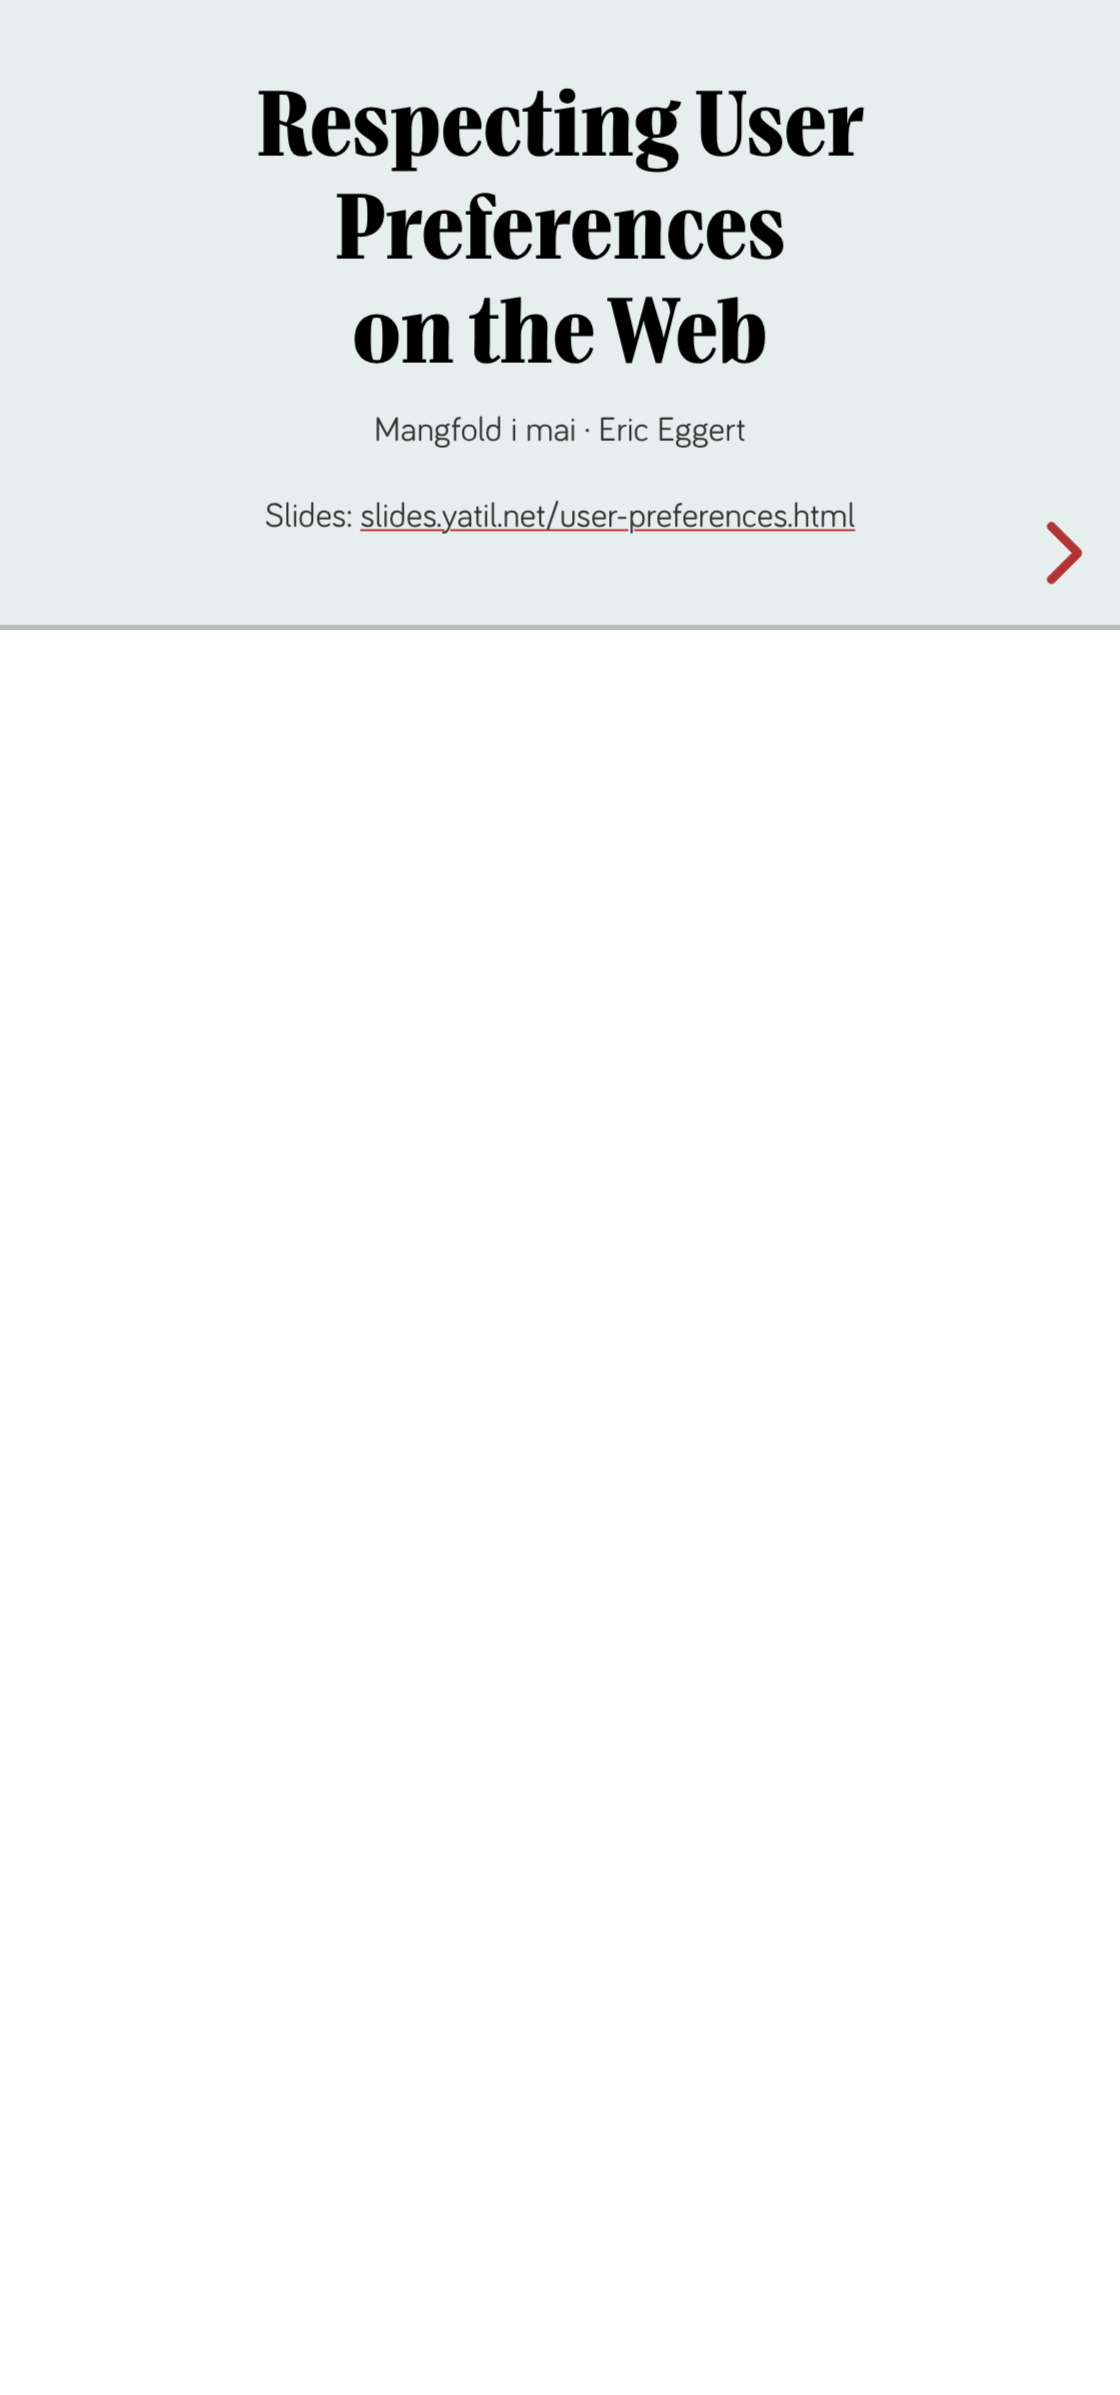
import math
import cairo

surface = cairo.ImageSurface(cairo.FORMAT_RGB24, 1120, 2395)
ctx = cairo.Context(surface)
options = cairo.FontOptions()
options.set_hint_metrics(cairo.HINT_METRICS_OFF)
options.set_hint_style(cairo.HINT_STYLE_NONE)
ctx.set_font_options(options)
ctx.set_miter_limit(4)


def picture(path, x, y, w, h):
    ctx.save()
    ctx.set_source_surface(cairo.ImageSurface.create_from_png(path), x, y)
    ctx.rectangle(x, y, w, h)
    ctx.fill()
    ctx.restore()


ctx.set_source_rgb(1, 1, 1)
ctx.paint()
picture("img1.png", 0, 0, 1120, 630)
surface.write_to_png("page.png")
